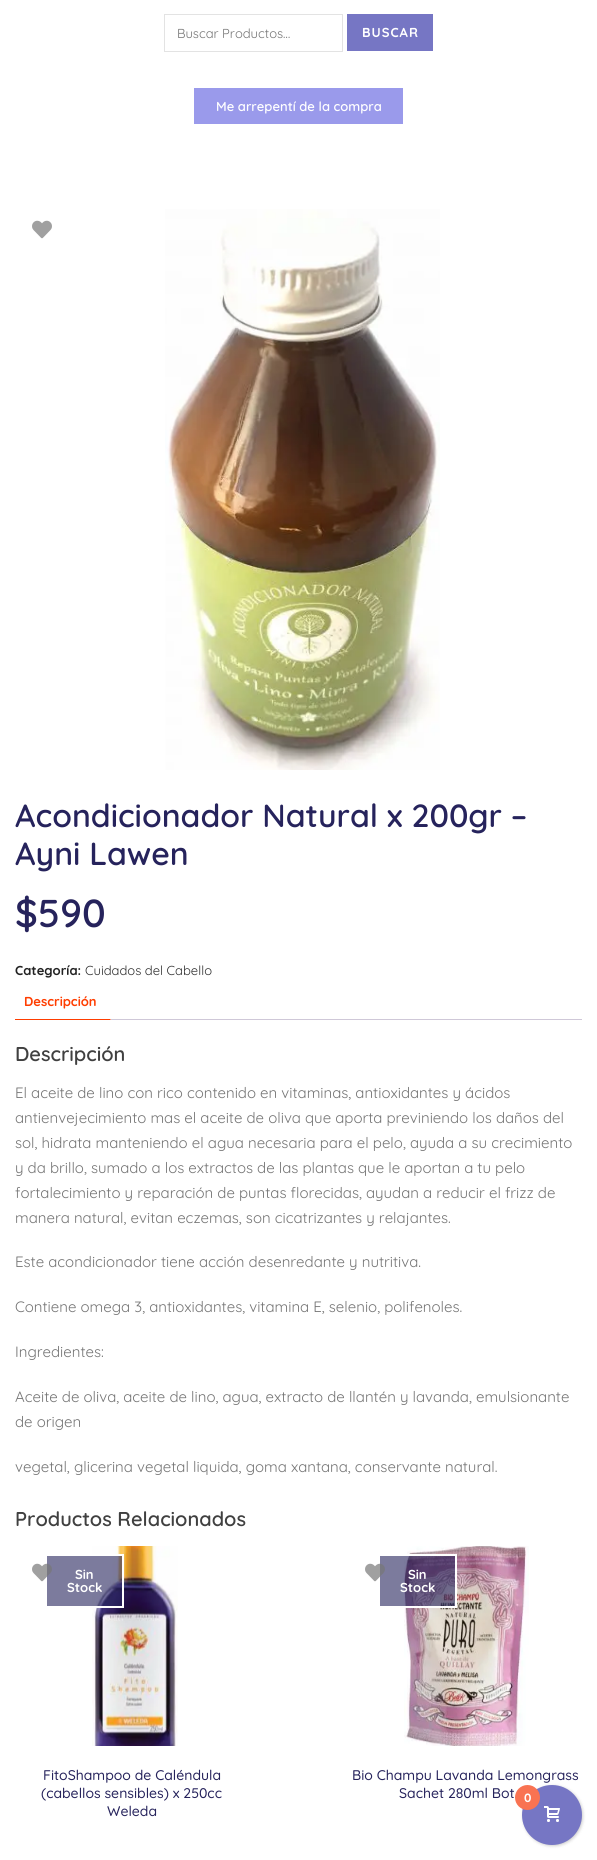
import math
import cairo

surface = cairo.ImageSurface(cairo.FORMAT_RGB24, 597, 1860)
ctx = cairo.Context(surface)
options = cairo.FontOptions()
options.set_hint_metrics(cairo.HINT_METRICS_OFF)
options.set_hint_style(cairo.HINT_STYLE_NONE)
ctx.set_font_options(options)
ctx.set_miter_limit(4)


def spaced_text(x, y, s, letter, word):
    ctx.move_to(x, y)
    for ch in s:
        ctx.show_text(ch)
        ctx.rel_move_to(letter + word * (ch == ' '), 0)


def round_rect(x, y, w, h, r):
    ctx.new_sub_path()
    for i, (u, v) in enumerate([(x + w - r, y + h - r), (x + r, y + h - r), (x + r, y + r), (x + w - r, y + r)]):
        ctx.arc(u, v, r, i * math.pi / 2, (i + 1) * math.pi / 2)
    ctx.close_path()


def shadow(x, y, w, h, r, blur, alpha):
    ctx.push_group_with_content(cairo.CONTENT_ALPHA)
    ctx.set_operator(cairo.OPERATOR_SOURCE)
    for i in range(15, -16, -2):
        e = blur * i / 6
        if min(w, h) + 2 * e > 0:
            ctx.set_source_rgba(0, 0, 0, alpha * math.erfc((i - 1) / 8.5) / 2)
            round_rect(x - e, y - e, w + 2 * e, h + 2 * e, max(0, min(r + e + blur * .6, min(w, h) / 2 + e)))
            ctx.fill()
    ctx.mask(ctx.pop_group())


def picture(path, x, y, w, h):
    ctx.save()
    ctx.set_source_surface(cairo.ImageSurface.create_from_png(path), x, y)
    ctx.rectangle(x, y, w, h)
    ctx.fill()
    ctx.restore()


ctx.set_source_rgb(1, 1, 1)
ctx.paint()
ctx.rectangle(164.5, 14.5, 178, 37)
ctx.set_source_rgb(0.89, 0.89, 0.89)
ctx.set_line_width(1)
ctx.stroke()
ctx.select_font_face("Quicksand")
ctx.set_font_size(13)
ctx.set_source_rgb(0.459, 0.459, 0.459)
ctx.move_to(177, 38)
ctx.show_text("Buscar Productos…")
ctx.set_source_rgb(0.463, 0.463, 0.769)
ctx.rectangle(347, 14, 86, 37)
ctx.fill()
ctx.select_font_face("Quicksand", cairo.FONT_SLANT_NORMAL, cairo.FONT_WEIGHT_BOLD)
ctx.set_source_rgb(1, 1, 1)
spaced_text(362, 37, "BUSCAR", 1, 0)
ctx.set_source_rgb(0.604, 0.604, 0.918)
ctx.rectangle(194, 88, 209, 36)
ctx.fill()
ctx.select_font_face("Quicksand SemiBold")
ctx.set_source_rgb(1, 1, 1)
ctx.move_to(216, 111)
ctx.show_text("Me arrepentí de la compra")
picture("img1.png", 32, 220, 20, 19)
picture("img2.png", 165, 209, 275, 561)
ctx.set_font_size(32)
ctx.set_source_rgb(0.149, 0.137, 0.361)
ctx.move_to(15, 827)
ctx.show_text("Acondicionador Natural x 200gr –")
ctx.move_to(15, 865)
ctx.show_text("Ayni Lawen")
ctx.set_font_size(39)
ctx.move_to(15, 927)
ctx.show_text("$590")
ctx.select_font_face("Quicksand", cairo.FONT_SLANT_NORMAL, cairo.FONT_WEIGHT_BOLD)
ctx.set_font_size(13)
ctx.set_source_rgb(0.133, 0.133, 0.133)
ctx.move_to(15, 975)
ctx.show_text("Categoría:")
ctx.select_font_face("Quicksand")
ctx.set_source_rgb(0.18, 0.18, 0.18)
ctx.move_to(85, 975)
ctx.show_text("Cuidados del Cabello")
ctx.save()
ctx.rectangle(15, 983, 567, 37)
ctx.clip()
ctx.set_source_rgb(1, 0.239, 0)
ctx.new_path()
ctx.move_to(111, 1020)
ctx.line_to(10, 1020)
ctx.line_to(11, 1019)
ctx.line_to(110, 1019)
ctx.close_path()
ctx.fill()
ctx.restore()
ctx.select_font_face("Quicksand", cairo.FONT_SLANT_NORMAL, cairo.FONT_WEIGHT_BOLD)
ctx.set_source_rgb(1, 0.239, 0)
ctx.move_to(24, 1006)
ctx.show_text("Descripción")
ctx.set_source_rgb(0.812, 0.784, 0.847)
ctx.rectangle(111, 1019, 471, 1)
ctx.fill()
ctx.select_font_face("Quicksand SemiBold")
ctx.set_font_size(20)
ctx.set_source_rgb(0.251, 0.251, 0.251)
ctx.move_to(15, 1061)
ctx.show_text("Descripción")
ctx.select_font_face("Quicksand")
ctx.set_font_size(15)
ctx.set_source_rgb(0.459, 0.459, 0.459)
ctx.move_to(15, 1098)
ctx.show_text("El aceite de lino con rico contenido en vitaminas, antioxidantes y ácidos")
ctx.move_to(15, 1123)
ctx.show_text("antienvejecimiento mas el aceite de oliva que aporta previniendo los daños del")
ctx.move_to(15, 1148)
ctx.show_text("sol, hidrata manteniendo el agua necesaria para el pelo, ayuda a su crecimiento")
ctx.move_to(15, 1173)
ctx.show_text("y da brillo, sumado a los extractos de las plantas que le aportan a tu pelo")
ctx.move_to(15, 1198)
ctx.show_text("fortalecimiento y reparación de puntas florecidas, ayudan a reducir el frizz de")
ctx.move_to(15, 1223)
ctx.show_text("manera natural, evitan eczemas, son cicatrizantes y relajantes.")
ctx.move_to(15, 1267)
ctx.show_text("Este acondicionador tiene acción desenredante y nutritiva.")
ctx.move_to(15, 1312)
ctx.show_text("Contiene omega 3, antioxidantes, vitamina E, selenio, polifenoles.")
ctx.move_to(15, 1357)
ctx.show_text("Ingredientes:")
ctx.move_to(15, 1402)
ctx.show_text("Aceite de oliva, aceite de lino, agua, extracto de llantén y lavanda, emulsionante")
ctx.move_to(15, 1427)
ctx.show_text("de origen")
ctx.move_to(15, 1472)
ctx.show_text("vegetal, glicerina vegetal liquida, goma xantana, conservante natural.")
ctx.select_font_face("Quicksand SemiBold")
ctx.set_font_size(20)
ctx.set_source_rgb(0.251, 0.251, 0.251)
ctx.move_to(15, 1526)
ctx.show_text("Productos Relacionados")
picture("img4.png", 92, 1546, 86, 200)
ctx.set_source_rgba(0.149, 0.137, 0.361, 0.6)
ctx.rectangle(46, 1555, 77, 52)
ctx.fill_preserve()
ctx.set_source_rgb(1, 1, 1)
ctx.set_line_width(2)
ctx.stroke()
picture("img3.png", 32, 1563, 20, 19)
ctx.select_font_face("Quicksand", cairo.FONT_SLANT_NORMAL, cairo.FONT_WEIGHT_BOLD)
ctx.set_font_size(13)
ctx.move_to(75, 1579)
ctx.show_text("Sin")
ctx.move_to(67, 1592)
ctx.show_text("Stock")
ctx.select_font_face("Quicksand Medium")
ctx.set_font_size(14)
ctx.set_source_rgb(0.149, 0.137, 0.361)
ctx.move_to(43, 1780)
ctx.show_text("FitoShampoo de Caléndula")
ctx.move_to(41, 1798)
ctx.show_text("(cabellos sensibles) x 250cc")
ctx.move_to(107, 1816)
ctx.show_text("Weleda")
picture("img5.png", 404, 1546, 125, 200)
ctx.set_source_rgba(0.149, 0.137, 0.361, 0.6)
ctx.rectangle(379, 1555, 77, 52)
ctx.fill_preserve()
ctx.set_source_rgb(1, 1, 1)
ctx.stroke()
picture("img3.png", 365, 1563, 20, 19)
ctx.select_font_face("Quicksand", cairo.FONT_SLANT_NORMAL, cairo.FONT_WEIGHT_BOLD)
ctx.set_font_size(13)
ctx.move_to(408, 1579)
ctx.show_text("Sin")
ctx.move_to(400, 1592)
ctx.show_text("Stock")
ctx.select_font_face("Quicksand Medium")
ctx.set_font_size(14)
ctx.set_source_rgb(0.149, 0.137, 0.361)
ctx.move_to(352, 1780)
ctx.show_text("Bio Champu Lavanda Lemongrass")
ctx.move_to(399, 1798)
ctx.show_text("Sachet 280ml Bot")
ctx.set_source_rgb(0, 0, 0)
shadow(523, 1786, 60, 60, 30, 1.5, 0.2)
ctx.set_source_rgb(0.463, 0.463, 0.769)
ctx.arc(552, 1815, 30, 0, 2 * math.pi)
ctx.fill()
ctx.set_source_rgb(0.976, 0.451, 0.322)
ctx.arc(527.5, 1797.5, 12.5, 0, 2 * math.pi)
ctx.fill()
ctx.select_font_face("Quicksand", cairo.FONT_SLANT_NORMAL, cairo.FONT_WEIGHT_BOLD)
ctx.set_font_size(12)
ctx.set_source_rgb(1, 1, 1)
ctx.move_to(524, 1802)
ctx.show_text("0")
picture("img6.png", 544, 1806, 16, 16)
surface.write_to_png("page.png")
